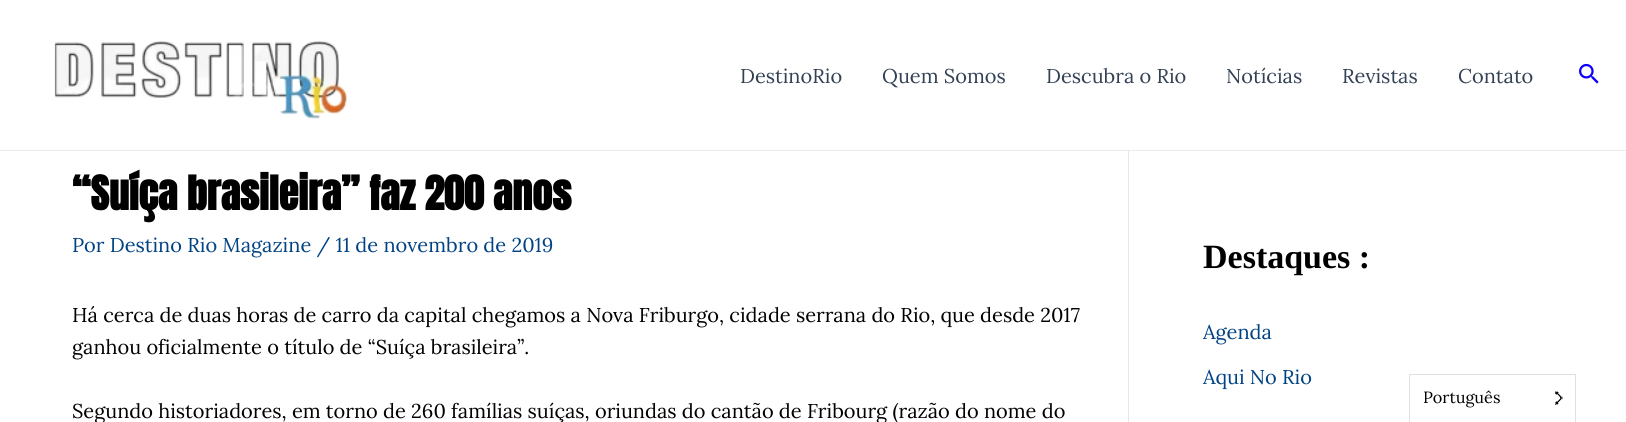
import math
import cairo

surface = cairo.ImageSurface(cairo.FORMAT_RGB24, 1626, 422)
ctx = cairo.Context(surface)
options = cairo.FontOptions()
options.set_hint_metrics(cairo.HINT_METRICS_OFF)
options.set_hint_style(cairo.HINT_STYLE_NONE)
ctx.set_font_options(options)
ctx.set_miter_limit(4)


def picture(path, x, y, w, h):
    ctx.save()
    ctx.set_source_surface(cairo.ImageSurface.create_from_png(path), x, y)
    ctx.rectangle(x, y, w, h)
    ctx.fill()
    ctx.restore()


ctx.set_source_rgb(1, 1, 1)
ctx.paint()
ctx.set_source_rgb(0.918, 0.918, 0.918)
ctx.rectangle(0, 150, 1626, 1)
ctx.fill()
picture("img1.png", 54, 41, 294, 78)
ctx.select_font_face("Lora")
ctx.set_font_size(20)
ctx.set_source_rgb(0.2, 0.255, 0.333)
ctx.move_to(740, 83)
ctx.show_text("DestinoRio")
ctx.move_to(882, 83)
ctx.show_text("Quem Somos")
ctx.move_to(1046, 83)
ctx.show_text("Descubra o Rio")
ctx.move_to(1226, 83)
ctx.show_text("Notícias")
ctx.move_to(1342, 83)
ctx.show_text("Revistas")
ctx.move_to(1458, 83)
ctx.show_text("Contato")
picture("img2.png", 1579, 63, 20, 21)
ctx.set_source_rgb(0.886, 0.91, 0.941)
ctx.rectangle(1128, 151, 1, 271)
ctx.fill()
ctx.select_font_face("Anton", cairo.FONT_SLANT_NORMAL, cairo.FONT_WEIGHT_BOLD)
ctx.set_font_size(40)
ctx.set_source_rgb(0, 0, 0)
ctx.move_to(72, 210)
ctx.show_text("“Suíça brasileira” faz 200 anos")
ctx.select_font_face("Lora")
ctx.set_font_size(20)
ctx.set_source_rgb(0, 0.259, 0.518)
ctx.move_to(72, 252)
ctx.show_text("Por Destino Rio Magazine / 11 de novembro de 2019")
ctx.set_source_rgb(0, 0, 0)
ctx.move_to(72, 322)
ctx.show_text("Há cerca de duas horas de carro da capital chegamos a Nova Friburgo, cidade serrana do Rio, que desde 2017")
ctx.move_to(72, 354)
ctx.show_text("ganhou oficialmente o título de “Suíça brasileira”.")
ctx.move_to(72, 418)
ctx.show_text("Segundo historiadores, em torno de 260 famílias suíças, oriundas do cantão de Fribourg (razão do nome do")
ctx.select_font_face("Liberation Serif", cairo.FONT_SLANT_NORMAL, cairo.FONT_WEIGHT_BOLD)
ctx.set_font_size(34)
ctx.move_to(1203, 268)
ctx.show_text("Destaques :")
ctx.select_font_face("Lora")
ctx.set_font_size(20)
ctx.set_source_rgb(0, 0.259, 0.518)
ctx.move_to(1203, 339)
ctx.show_text("Agenda")
ctx.move_to(1203, 384)
ctx.show_text("Aqui No Rio")
ctx.rectangle(1409.5, 374.5, 166, 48)
ctx.set_source_rgb(0.878, 0.878, 0.878)
ctx.set_line_width(1)
ctx.stroke()
ctx.set_font_size(16.25)
ctx.set_source_rgb(0, 0, 0)
ctx.move_to(1423, 403)
ctx.show_text("Português")
picture("img3.png", 1555, 391, 8, 14)
surface.write_to_png("page.png")
